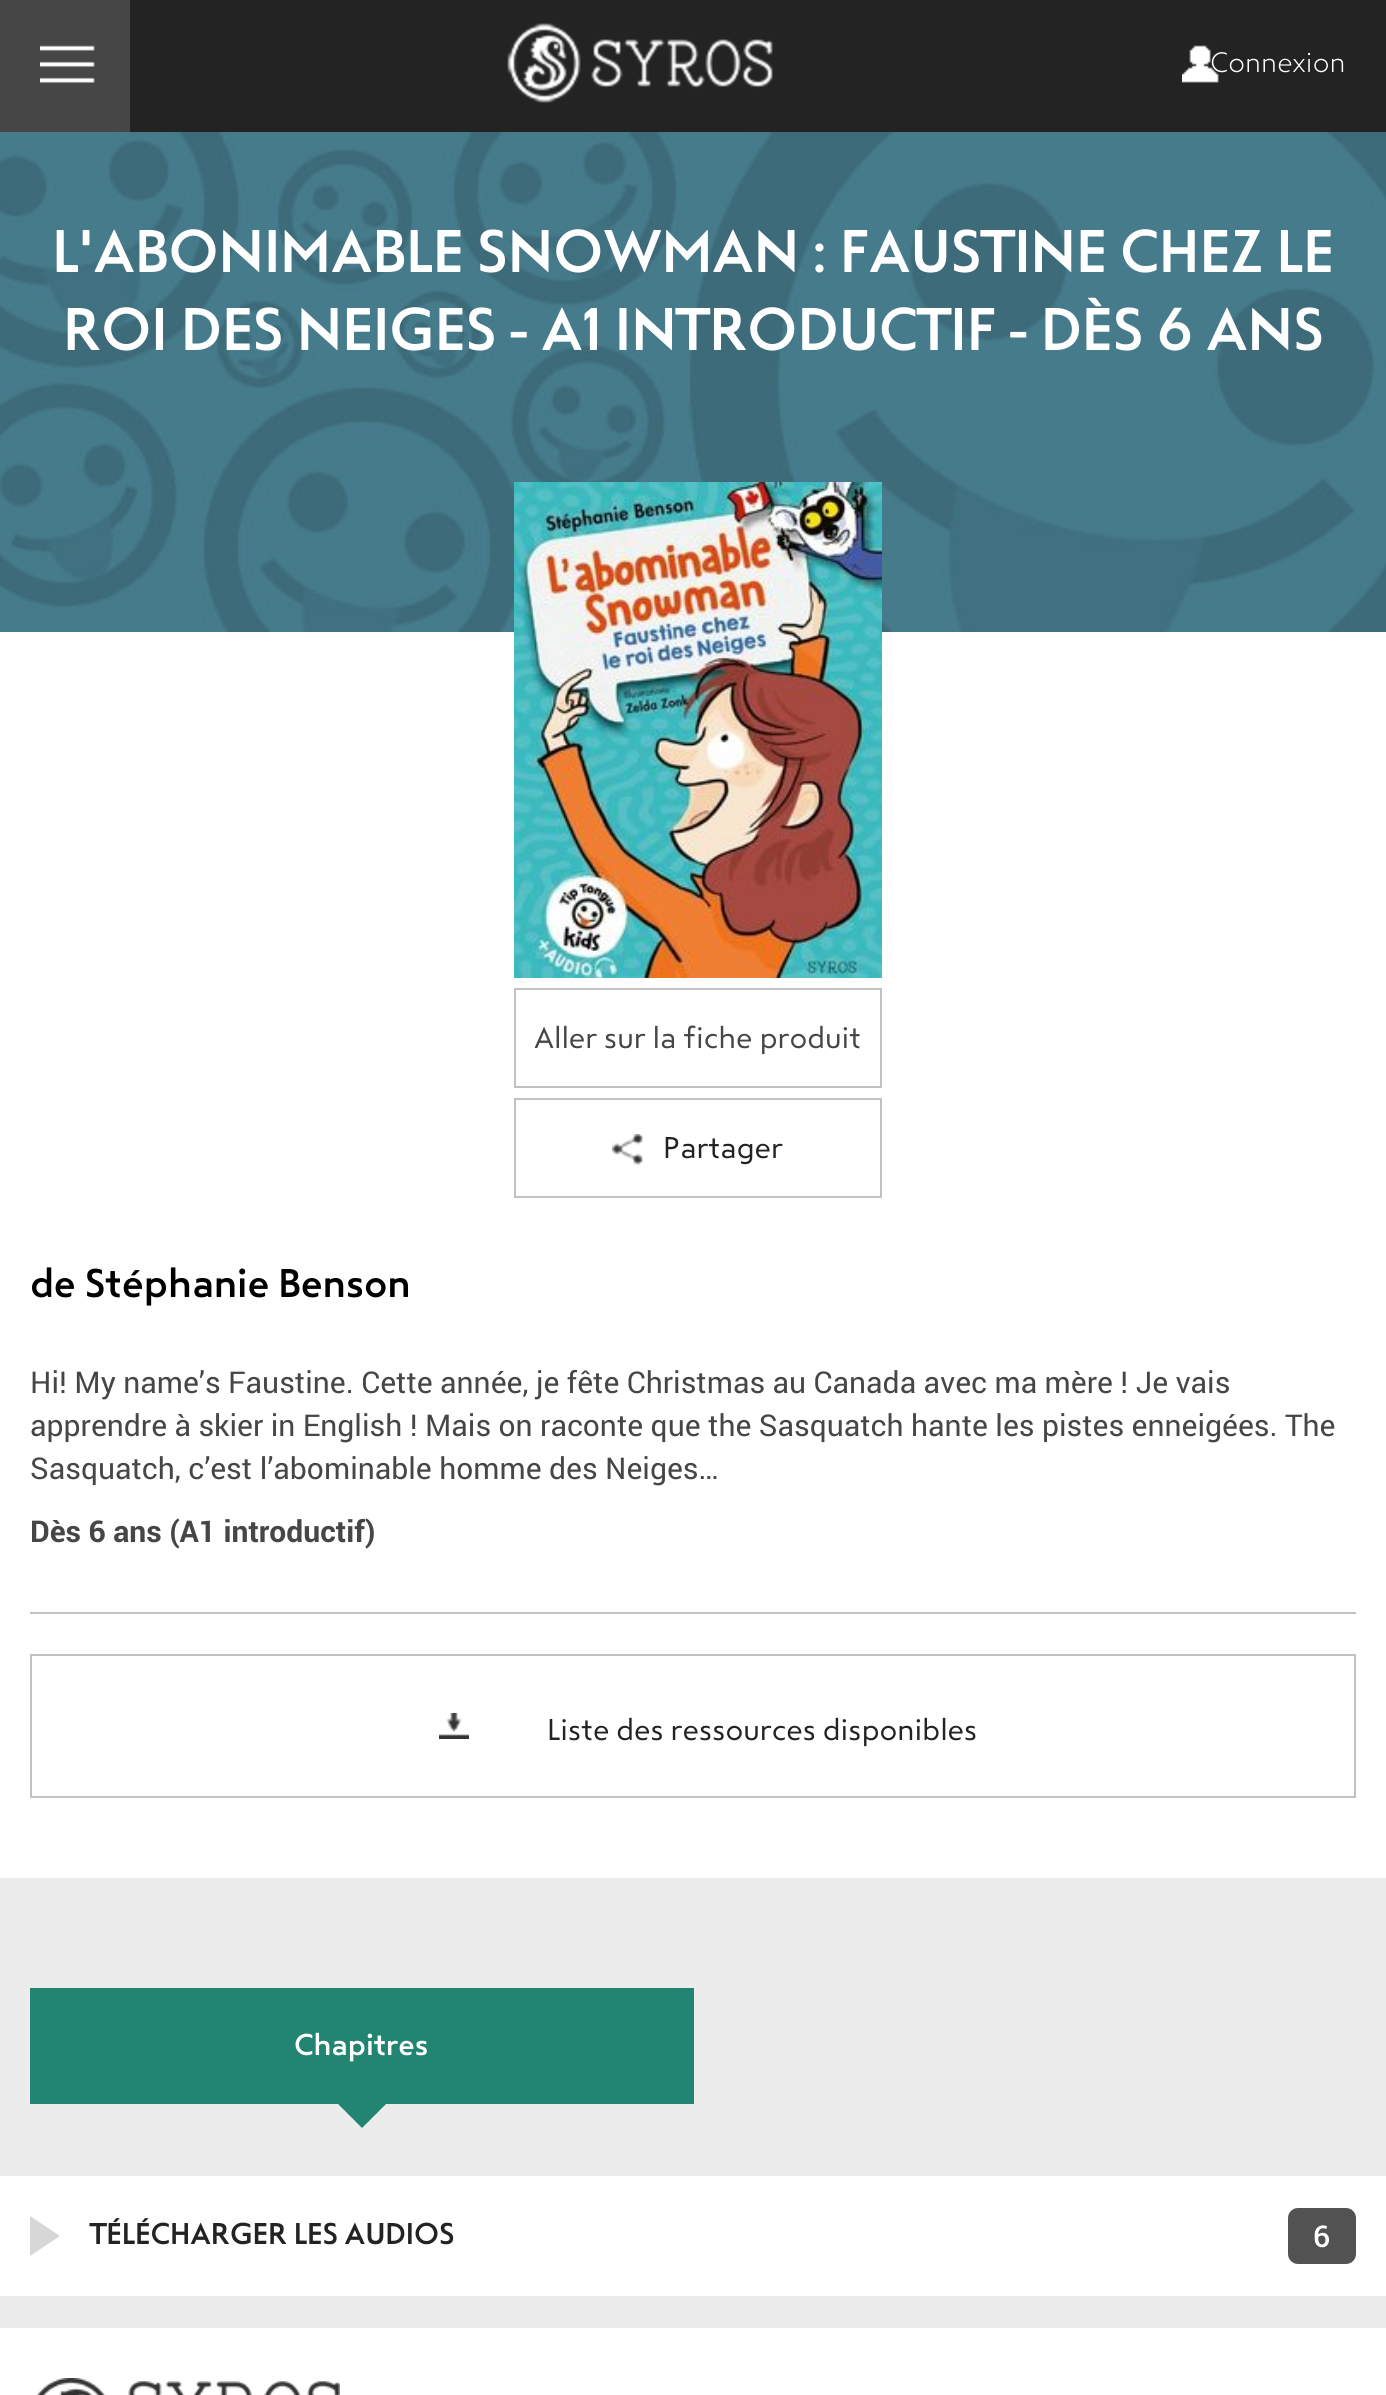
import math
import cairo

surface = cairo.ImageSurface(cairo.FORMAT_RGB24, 1386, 2395)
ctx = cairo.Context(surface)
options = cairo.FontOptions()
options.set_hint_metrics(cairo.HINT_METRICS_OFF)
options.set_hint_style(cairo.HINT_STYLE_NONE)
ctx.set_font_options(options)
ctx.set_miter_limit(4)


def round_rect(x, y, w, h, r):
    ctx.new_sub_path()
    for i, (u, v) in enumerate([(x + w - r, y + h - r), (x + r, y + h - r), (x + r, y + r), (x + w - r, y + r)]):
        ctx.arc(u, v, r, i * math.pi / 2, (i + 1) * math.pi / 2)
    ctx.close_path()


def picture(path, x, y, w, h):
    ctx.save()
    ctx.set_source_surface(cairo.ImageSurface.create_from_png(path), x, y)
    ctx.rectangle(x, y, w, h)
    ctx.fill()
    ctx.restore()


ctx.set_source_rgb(0.925, 0.925, 0.925)
ctx.paint()
ctx.set_source_rgb(0.137, 0.137, 0.137)
ctx.rectangle(130, 0, 1256, 132)
ctx.fill()
ctx.set_source_rgb(0.275, 0.275, 0.275)
ctx.rectangle(0, 0, 130, 132)
ctx.fill()
picture("img1.png", 40, 45, 55, 38)
picture("img2.png", 507, 23, 266, 80)
picture("img3.png", 1182, 45, 37, 38)
ctx.select_font_face("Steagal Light")
ctx.set_font_size(28)
ctx.set_source_rgb(1, 1, 1)
ctx.move_to(1210, 72)
ctx.show_text("Connexion")
picture("img4.png", 0, 132, 1386, 500)
ctx.select_font_face("Steagal Medium")
ctx.set_font_size(60)
ctx.move_to(52, 272)
ctx.show_text("L'ABONIMABLE SNOWMAN : FAUSTINE CHEZ LE")
ctx.move_to(63, 350)
ctx.show_text("ROI DES NEIGES - A1 INTRODUCTIF - DÈS 6 ANS")
ctx.rectangle(0, 632, 1386, 1246)
ctx.fill()
picture("img5.png", 514, 482, 368, 496)
ctx.rectangle(515, 989, 366, 98)
ctx.set_source_rgb(0.757, 0.757, 0.757)
ctx.stroke()
ctx.select_font_face("Steagal")
ctx.set_font_size(30)
ctx.set_source_rgb(0.275, 0.275, 0.275)
ctx.move_to(534, 1048)
ctx.show_text("Aller sur la fiche produit")
ctx.rectangle(515, 1099, 366, 98)
ctx.set_source_rgb(0.757, 0.757, 0.757)
ctx.stroke()
picture("img6.png", 612, 1134, 31, 31)
ctx.set_source_rgb(0.137, 0.137, 0.137)
ctx.move_to(663, 1158)
ctx.show_text("Partager")
ctx.select_font_face("Steagal Medium")
ctx.set_font_size(40)
ctx.set_source_rgb(0, 0, 0)
ctx.move_to(30, 1297)
ctx.show_text("de Stéphanie Benson")
ctx.select_font_face("Roboto")
ctx.set_font_size(30)
ctx.set_source_rgb(0.275, 0.275, 0.275)
ctx.move_to(30, 1393)
ctx.show_text("Hi! My name’s Faustine. Cette année, je fête Christmas au Canada avec ma mère ! Je vais")
ctx.move_to(30, 1436)
ctx.show_text("apprendre à skier in English ! Mais on raconte que the Sasquatch hante les pistes enneigées. The")
ctx.move_to(30, 1479)
ctx.show_text("Sasquatch, c’est l’abominable homme des Neiges…")
ctx.select_font_face("Roboto", cairo.FONT_SLANT_NORMAL, cairo.FONT_WEIGHT_BOLD)
ctx.move_to(30, 1542)
ctx.show_text("Dès 6 ans (A1 introductif)")
ctx.set_source_rgb(0.757, 0.757, 0.757)
ctx.rectangle(30, 1612, 1326, 2)
ctx.fill()
ctx.rectangle(31, 1655, 1324, 142)
ctx.stroke()
picture("img7.png", 439, 1713, 30, 26)
ctx.select_font_face("Steagal")
ctx.set_source_rgb(0.137, 0.137, 0.137)
ctx.move_to(547, 1740)
ctx.show_text("Liste des ressources disponibles")
ctx.set_source_rgb(0.133, 0.522, 0.447)
ctx.rectangle(30, 1988, 664, 116)
ctx.fill()
ctx.select_font_face("Steagal Medium")
ctx.set_source_rgb(1, 1, 1)
ctx.move_to(294, 2055)
ctx.show_text("Chapitres")
ctx.set_source_rgb(0.133, 0.522, 0.447)
ctx.new_path()
ctx.move_to(338, 2104)
ctx.line_to(386, 2104)
ctx.line_to(362, 2128)
ctx.close_path()
ctx.fill()
ctx.set_source_rgb(1, 1, 1)
ctx.rectangle(0, 2176, 1386, 120)
ctx.fill()
ctx.set_source_rgb(0.843, 0.843, 0.843)
ctx.new_path()
ctx.move_to(30, 2256)
ctx.line_to(30, 2216)
ctx.line_to(60, 2236)
ctx.close_path()
ctx.fill()
ctx.set_source_rgb(0.137, 0.137, 0.137)
ctx.move_to(90, 2244)
ctx.show_text("TÉLÉCHARGER LES AUDIOS")
ctx.set_source_rgb(0.322, 0.322, 0.322)
round_rect(1288, 2208, 68, 56, 10)
ctx.fill()
ctx.select_font_face("Roboto Medium")
ctx.set_source_rgb(1, 1, 1)
ctx.move_to(1313, 2247)
ctx.show_text("6")
ctx.rectangle(0, 2328, 1386, 67)
ctx.fill()
picture("img8.png", 36, 2378, 304, 17)
surface.write_to_png("page.png")
